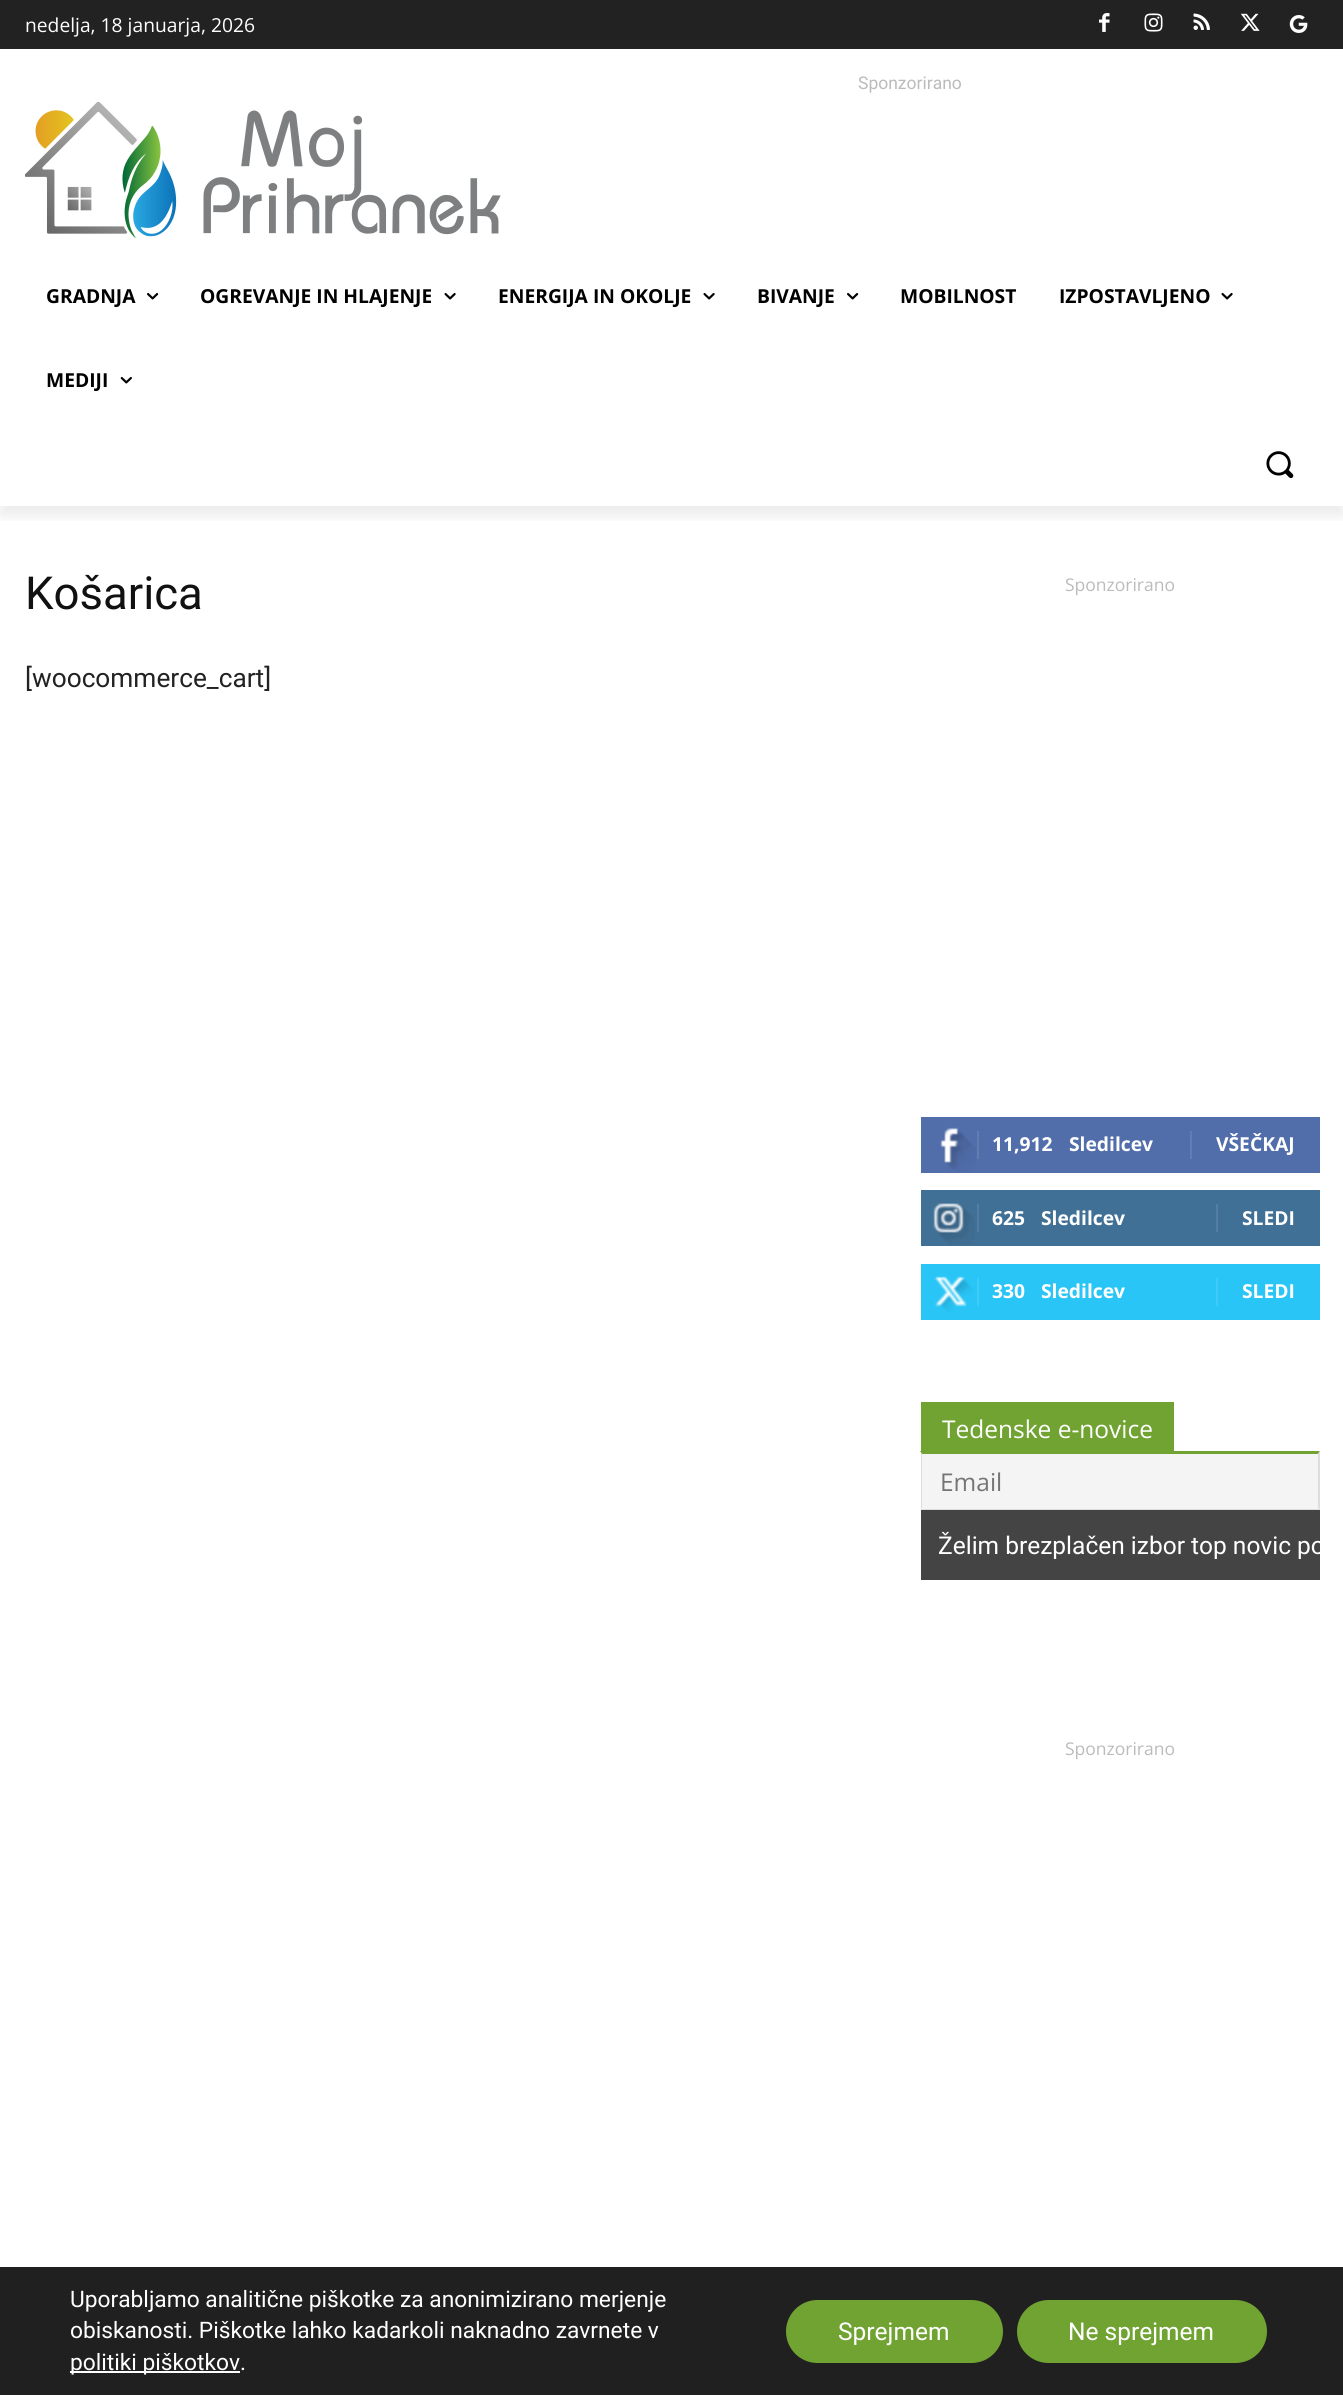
import math
import cairo

surface = cairo.ImageSurface(cairo.FORMAT_RGB24, 1343, 2395)
ctx = cairo.Context(surface)
options = cairo.FontOptions()
options.set_hint_metrics(cairo.HINT_METRICS_OFF)
options.set_hint_style(cairo.HINT_STYLE_NONE)
ctx.set_font_options(options)
ctx.set_miter_limit(4)


def round_rect(x, y, w, h, r):
    ctx.new_sub_path()
    for i, (u, v) in enumerate([(x + w - r, y + h - r), (x + r, y + h - r), (x + r, y + r), (x + w - r, y + r)]):
        ctx.arc(u, v, r, i * math.pi / 2, (i + 1) * math.pi / 2)
    ctx.close_path()


def shadow(x, y, w, h, r, blur, alpha):
    ctx.push_group_with_content(cairo.CONTENT_ALPHA)
    ctx.set_operator(cairo.OPERATOR_SOURCE)
    for i in range(15, -16, -2):
        e = blur * i / 6
        if min(w, h) + 2 * e > 0:
            ctx.set_source_rgba(0, 0, 0, alpha * math.erfc((i - 1) / 8.5) / 2)
            round_rect(x - e, y - e, w + 2 * e, h + 2 * e, max(0, min(r + e + blur * .6, min(w, h) / 2 + e)))
            ctx.fill()
    ctx.mask(ctx.pop_group())


def picture(path, x, y, w, h):
    ctx.save()
    ctx.set_source_surface(cairo.ImageSurface.create_from_png(path), x, y)
    ctx.rectangle(x, y, w, h)
    ctx.fill()
    ctx.restore()


ctx.set_source_rgb(1, 1, 1)
ctx.paint()
ctx.set_source_rgb(0.133, 0.133, 0.133)
ctx.rectangle(0, 0, 1343, 49)
ctx.fill()
picture("img1.png", 1099, 13, 11, 19)
picture("img2.png", 1144, 13, 19, 19)
picture("img3.png", 1193, 13, 17, 17)
picture("img4.png", 1240, 13, 20, 18)
picture("img5.png", 1289, 15, 19, 18)
picture("img6.png", 25, 102, 476, 136)
ctx.save()
ctx.rectangle(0, 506, 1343, 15)
ctx.clip()
ctx.set_source_rgb(0, 0, 0)
shadow(0, 11, 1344, 505, 0, 7, 0.08)
ctx.restore()
ctx.select_font_face("Open Sans")
ctx.set_font_size(19.25)
ctx.set_source_rgb(1, 1, 1)
ctx.move_to(25, 32)
ctx.show_text("nedelja, 18 januarja, 2026")
ctx.select_font_face("Roboto")
ctx.set_font_size(17.5)
ctx.set_source_rgb(0.733, 0.733, 0.733)
ctx.move_to(858, 89)
ctx.show_text("Sponzorirano")
ctx.select_font_face("Open Sans", cairo.FONT_SLANT_NORMAL, cairo.FONT_WEIGHT_BOLD)
ctx.set_font_size(19.25)
ctx.set_source_rgb(0, 0, 0)
ctx.move_to(46, 303)
ctx.show_text("GRADNJA")
picture("img7.png", 147, 292, 12, 8)
ctx.move_to(200, 303)
ctx.show_text("OGREVANJE IN HLAJENJE")
picture("img8.png", 444, 292, 12, 8)
ctx.move_to(498, 303)
ctx.show_text("ENERGIJA IN OKOLJE")
picture("img8.png", 703, 292, 12, 8)
ctx.move_to(757, 303)
ctx.show_text("BIVANJE")
picture("img7.png", 847, 292, 12, 8)
ctx.move_to(900, 303)
ctx.show_text("MOBILNOST")
ctx.move_to(1059, 303)
ctx.show_text("IZPOSTAVLJENO")
picture("img8.png", 1221, 292, 12, 8)
ctx.move_to(46, 387)
ctx.show_text("MEDIJI")
picture("img9.png", 120, 376, 12, 8)
picture("img10.png", 1266, 451, 28, 28)
ctx.select_font_face("Roboto")
ctx.set_font_size(45.5)
ctx.set_source_rgb(0.067, 0.067, 0.067)
ctx.move_to(25, 609)
ctx.show_text("Košarica")
ctx.set_font_size(26.25)
ctx.set_source_rgb(0.133, 0.133, 0.133)
ctx.move_to(25, 687)
ctx.show_text("[woocommerce_cart]")
ctx.select_font_face("Open Sans")
ctx.set_font_size(17.5)
ctx.set_source_rgb(0.733, 0.733, 0.733)
ctx.move_to(1065, 591)
ctx.show_text("Sponzorirano")
ctx.set_source_rgb(0.318, 0.431, 0.671)
ctx.rectangle(921, 1117, 399, 56)
ctx.fill()
picture("img11.png", 940, 1127, 36, 45)
ctx.set_source_rgb(0.384, 0.49, 0.702)
ctx.rectangle(977, 1131, 2, 28)
ctx.fill()
ctx.select_font_face("Open Sans", cairo.FONT_SLANT_NORMAL, cairo.FONT_WEIGHT_BOLD)
ctx.set_font_size(19.25)
ctx.set_source_rgb(1, 1, 1)
ctx.move_to(992, 1151)
ctx.show_text("11,912")
ctx.move_to(1069, 1151)
ctx.show_text("Sledilcev")
ctx.set_source_rgb(0.384, 0.49, 0.702)
ctx.rectangle(1190, 1131, 2, 28)
ctx.fill()
ctx.set_source_rgb(1, 1, 1)
ctx.move_to(1216, 1151)
ctx.show_text("VŠEČKAJ")
ctx.set_source_rgb(0.255, 0.439, 0.588)
ctx.rectangle(921, 1190, 399, 56)
ctx.fill()
picture("img12.png", 933, 1203, 42, 42)
ctx.set_source_rgb(0.329, 0.494, 0.631)
ctx.rectangle(977, 1204, 2, 28)
ctx.fill()
ctx.set_source_rgb(1, 1, 1)
ctx.move_to(992, 1225)
ctx.show_text("625")
ctx.move_to(1041, 1225)
ctx.show_text("Sledilcev")
ctx.set_source_rgb(0.329, 0.494, 0.631)
ctx.rectangle(1216, 1204, 2, 28)
ctx.fill()
ctx.set_source_rgb(1, 1, 1)
ctx.move_to(1242, 1225)
ctx.show_text("SLEDI")
ctx.set_source_rgb(0.161, 0.773, 0.965)
ctx.rectangle(921, 1264, 399, 56)
ctx.fill()
picture("img13.png", 934, 1276, 39, 37)
ctx.set_source_rgb(0.243, 0.796, 0.969)
ctx.rectangle(977, 1278, 2, 28)
ctx.fill()
ctx.set_source_rgb(1, 1, 1)
ctx.move_to(992, 1298)
ctx.show_text("330")
ctx.move_to(1041, 1298)
ctx.show_text("Sledilcev")
ctx.set_source_rgb(0.243, 0.796, 0.969)
ctx.rectangle(1216, 1278, 2, 28)
ctx.fill()
ctx.set_source_rgb(1, 1, 1)
ctx.move_to(1242, 1298)
ctx.show_text("SLEDI")
ctx.set_source_rgb(0.439, 0.639, 0.196)
ctx.rectangle(921, 1402, 253, 49)
ctx.fill()
ctx.select_font_face("Open Sans")
ctx.set_font_size(24.5)
ctx.set_source_rgb(1, 1, 1)
ctx.move_to(942, 1438)
ctx.show_text("Tedenske e-novice")
ctx.set_source_rgb(0.957, 0.957, 0.957)
ctx.rectangle(922, 1454, 396, 55)
ctx.fill()
ctx.set_source_rgb(0.439, 0.639, 0.196)
ctx.new_path()
ctx.move_to(920, 1451)
ctx.line_to(1320, 1451)
ctx.line_to(1318, 1454)
ctx.line_to(922, 1454)
ctx.close_path()
ctx.fill()
ctx.set_source_rgb(0.867, 0.867, 0.867)
ctx.new_path()
ctx.move_to(1320, 1451)
ctx.line_to(1320, 1510)
ctx.line_to(1318, 1508)
ctx.line_to(1318, 1454)
ctx.close_path()
ctx.fill()
ctx.rectangle(921, 1509, 399, 1)
ctx.fill()
ctx.save()
ctx.rectangle(921, 1402, 399, 196)
ctx.clip()
ctx.new_path()
ctx.move_to(920, 1510)
ctx.line_to(920, 1451)
ctx.line_to(922, 1454)
ctx.line_to(922, 1508)
ctx.close_path()
ctx.fill()
ctx.restore()
ctx.set_source_rgb(0.459, 0.459, 0.459)
ctx.move_to(940, 1491)
ctx.show_text("Email")
ctx.set_source_rgb(0.267, 0.267, 0.267)
ctx.rectangle(921, 1510, 399, 70)
ctx.fill()
ctx.save()
ctx.rectangle(921, 1510, 399, 70)
ctx.clip()
ctx.select_font_face("Roboto")
ctx.set_source_rgb(1, 1, 1)
ctx.move_to(938, 1554)
ctx.show_text("Želim brezplačen izbor top novic po")
ctx.restore()
ctx.set_font_size(17.5)
ctx.set_source_rgb(0.733, 0.733, 0.733)
ctx.move_to(1065, 1755)
ctx.show_text("Sponzorirano")
ctx.set_source_rgb(0.125, 0.125, 0.125)
ctx.rectangle(0, 2267, 1343, 128)
ctx.fill()
ctx.select_font_face("Roboto")
ctx.set_font_size(22.75)
ctx.set_source_rgb(1, 1, 1)
ctx.move_to(70, 2307)
ctx.show_text("Uporabljamo analitične piškotke za anonimizirano merjenje")
ctx.move_to(70, 2338)
ctx.show_text("obiskanosti. Piškotke lahko kadarkoli naknadno zavrnete v")
ctx.rectangle(70, 2371, 170, 2)
ctx.fill()
ctx.move_to(70, 2370)
ctx.show_text("politiki piškotkov.")
ctx.set_source_rgb(0.439, 0.639, 0.196)
round_rect(786, 2300, 217, 63, 31.5)
ctx.fill()
ctx.set_font_size(24.5)
ctx.set_source_rgb(1, 1, 1)
ctx.move_to(838, 2340)
ctx.show_text("Sprejmem")
ctx.set_source_rgb(0.439, 0.639, 0.196)
round_rect(1017, 2300, 250, 63, 31.5)
ctx.fill()
ctx.set_source_rgb(1, 1, 1)
ctx.move_to(1068, 2340)
ctx.show_text("Ne sprejmem")
surface.write_to_png("page.png")
